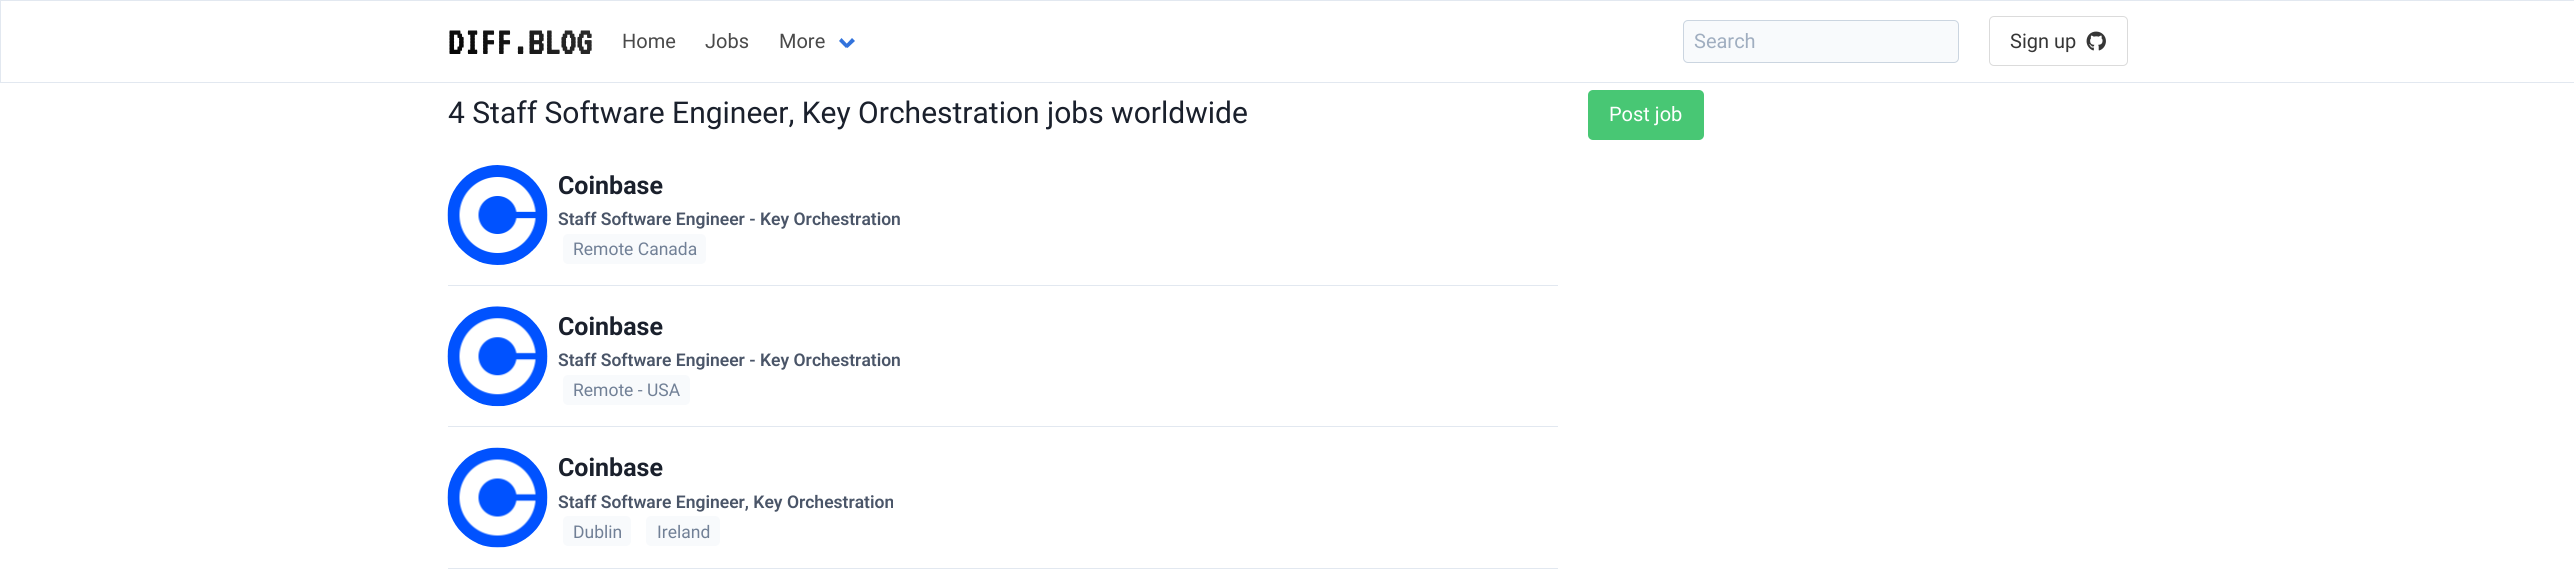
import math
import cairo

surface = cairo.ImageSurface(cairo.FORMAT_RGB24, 2574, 581)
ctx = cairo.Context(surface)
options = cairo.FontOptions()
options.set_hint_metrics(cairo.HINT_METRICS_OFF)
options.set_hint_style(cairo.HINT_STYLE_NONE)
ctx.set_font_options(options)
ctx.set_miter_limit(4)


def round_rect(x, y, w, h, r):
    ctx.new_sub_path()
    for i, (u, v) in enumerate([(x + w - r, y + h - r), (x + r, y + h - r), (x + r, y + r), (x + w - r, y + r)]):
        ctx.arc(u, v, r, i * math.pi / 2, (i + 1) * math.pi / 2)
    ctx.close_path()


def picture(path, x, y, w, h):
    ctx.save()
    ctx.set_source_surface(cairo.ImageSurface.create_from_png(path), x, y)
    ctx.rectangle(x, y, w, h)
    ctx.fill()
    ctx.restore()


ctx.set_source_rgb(1, 1, 1)
ctx.paint()
ctx.rectangle(0.5, 0.5, 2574, 82)
ctx.set_source_rgb(0.886, 0.91, 0.941)
ctx.set_line_width(1)
ctx.stroke()
ctx.select_font_face("VT323", cairo.FONT_SLANT_NORMAL, cairo.FONT_WEIGHT_BOLD)
ctx.set_font_size(40)
gradient = cairo.LinearGradient(469, 92, 571, -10)
gradient.add_color_stop_rgba(0, 0, 0, 0, 1)
gradient.add_color_stop_rgba(1, 0.2, 0.2, 0.2, 1)
ctx.set_source(gradient)
ctx.move_to(448, 54)
ctx.show_text("DIFF.BLOG")
ctx.select_font_face("Roboto")
ctx.set_font_size(20)
ctx.set_source_rgb(0.29, 0.29, 0.29)
ctx.move_to(622, 48)
ctx.show_text("Home")
ctx.move_to(705, 48)
ctx.show_text("Jobs")
ctx.move_to(779, 48)
ctx.show_text("More")
ctx.set_source_rgb(0.196, 0.451, 0.863)
ctx.new_path()
ctx.move_to(845, 45.5)
ctx.line_to(852, 38)
ctx.line_to(855, 41)
ctx.line_to(847.5, 48)
ctx.close_path()
ctx.fill()
ctx.new_path()
ctx.move_to(839, 41)
ctx.line_to(841.5, 38)
ctx.line_to(848.5, 45.5)
ctx.line_to(846, 48)
ctx.close_path()
ctx.fill()
ctx.set_source_rgb(0.969, 0.98, 0.988)
round_rect(1683.5, 20.5, 275, 42, 4.5)
ctx.fill_preserve()
ctx.set_source_rgb(0.796, 0.835, 0.878)
ctx.stroke()
ctx.set_source_rgb(0.627, 0.682, 0.753)
ctx.move_to(1694, 48)
ctx.show_text("Search")
round_rect(1989.5, 16.5, 138, 49, 4.5)
ctx.set_source_rgb(0.859, 0.859, 0.859)
ctx.stroke()
ctx.set_source_rgb(0.212, 0.212, 0.212)
ctx.move_to(2010, 48)
ctx.show_text("Sign up")
picture("img1.png", 2086, 31, 20, 20)
ctx.set_font_size(30)
ctx.set_source_rgb(0.102, 0.125, 0.173)
ctx.move_to(448, 123)
ctx.show_text("4 Staff Software Engineer, Key Orchestration jobs worldwide")
ctx.set_source_rgb(0.886, 0.91, 0.941)
ctx.rectangle(448, 285, 1110, 1)
ctx.fill()
picture("img2.png", 447, 165, 101, 100)
ctx.select_font_face("Roboto", cairo.FONT_SLANT_NORMAL, cairo.FONT_WEIGHT_BOLD)
ctx.set_font_size(25)
ctx.set_source_rgb(0.102, 0.125, 0.173)
ctx.move_to(558, 194)
ctx.show_text("Coinbase")
ctx.select_font_face("Roboto SemiBold")
ctx.set_font_size(17.5)
ctx.set_source_rgb(0.29, 0.333, 0.408)
ctx.move_to(558, 225)
ctx.show_text("Staff Software Engineer - Key Orchestration")
ctx.set_source_rgb(0.969, 0.98, 0.988)
round_rect(563, 234, 143, 30, 5)
ctx.fill()
ctx.select_font_face("Roboto")
ctx.set_source_rgb(0.443, 0.502, 0.588)
ctx.move_to(573, 255)
ctx.show_text("Remote Canada")
ctx.set_source_rgb(0.886, 0.91, 0.941)
ctx.rectangle(448, 426, 1110, 1)
ctx.fill()
picture("img3.png", 447, 306, 101, 101)
ctx.select_font_face("Roboto", cairo.FONT_SLANT_NORMAL, cairo.FONT_WEIGHT_BOLD)
ctx.set_font_size(25)
ctx.set_source_rgb(0.102, 0.125, 0.173)
ctx.move_to(558, 335)
ctx.show_text("Coinbase")
ctx.select_font_face("Roboto SemiBold")
ctx.set_font_size(17.5)
ctx.set_source_rgb(0.29, 0.333, 0.408)
ctx.move_to(558, 366)
ctx.show_text("Staff Software Engineer - Key Orchestration")
ctx.set_source_rgb(0.969, 0.98, 0.988)
round_rect(563, 375, 127, 30, 5)
ctx.fill()
ctx.select_font_face("Roboto")
ctx.set_source_rgb(0.443, 0.502, 0.588)
ctx.move_to(573, 396)
ctx.show_text("Remote - USA")
ctx.set_source_rgb(0.886, 0.91, 0.941)
ctx.rectangle(448, 568, 1110, 1)
ctx.fill()
picture("img4.png", 447, 447, 101, 101)
ctx.select_font_face("Roboto", cairo.FONT_SLANT_NORMAL, cairo.FONT_WEIGHT_BOLD)
ctx.set_font_size(25)
ctx.set_source_rgb(0.102, 0.125, 0.173)
ctx.move_to(558, 476)
ctx.show_text("Coinbase")
ctx.select_font_face("Roboto SemiBold")
ctx.set_font_size(17.5)
ctx.set_source_rgb(0.29, 0.333, 0.408)
ctx.move_to(558, 508)
ctx.show_text("Staff Software Engineer, Key Orchestration")
ctx.set_source_rgb(0.969, 0.98, 0.988)
round_rect(563, 516, 68, 30, 5)
ctx.fill()
ctx.select_font_face("Roboto")
ctx.set_source_rgb(0.443, 0.502, 0.588)
ctx.move_to(573, 538)
ctx.show_text("Dublin")
ctx.set_source_rgb(0.969, 0.98, 0.988)
round_rect(646, 516, 74, 30, 5)
ctx.fill()
ctx.set_source_rgb(0.443, 0.502, 0.588)
ctx.move_to(657, 538)
ctx.show_text("Ireland")
ctx.set_source_rgb(0.282, 0.78, 0.455)
round_rect(1588, 90, 116, 50, 5)
ctx.fill()
ctx.set_font_size(20)
ctx.set_source_rgb(1, 1, 1)
ctx.move_to(1609, 121)
ctx.show_text("Post job")
surface.write_to_png("page.png")
